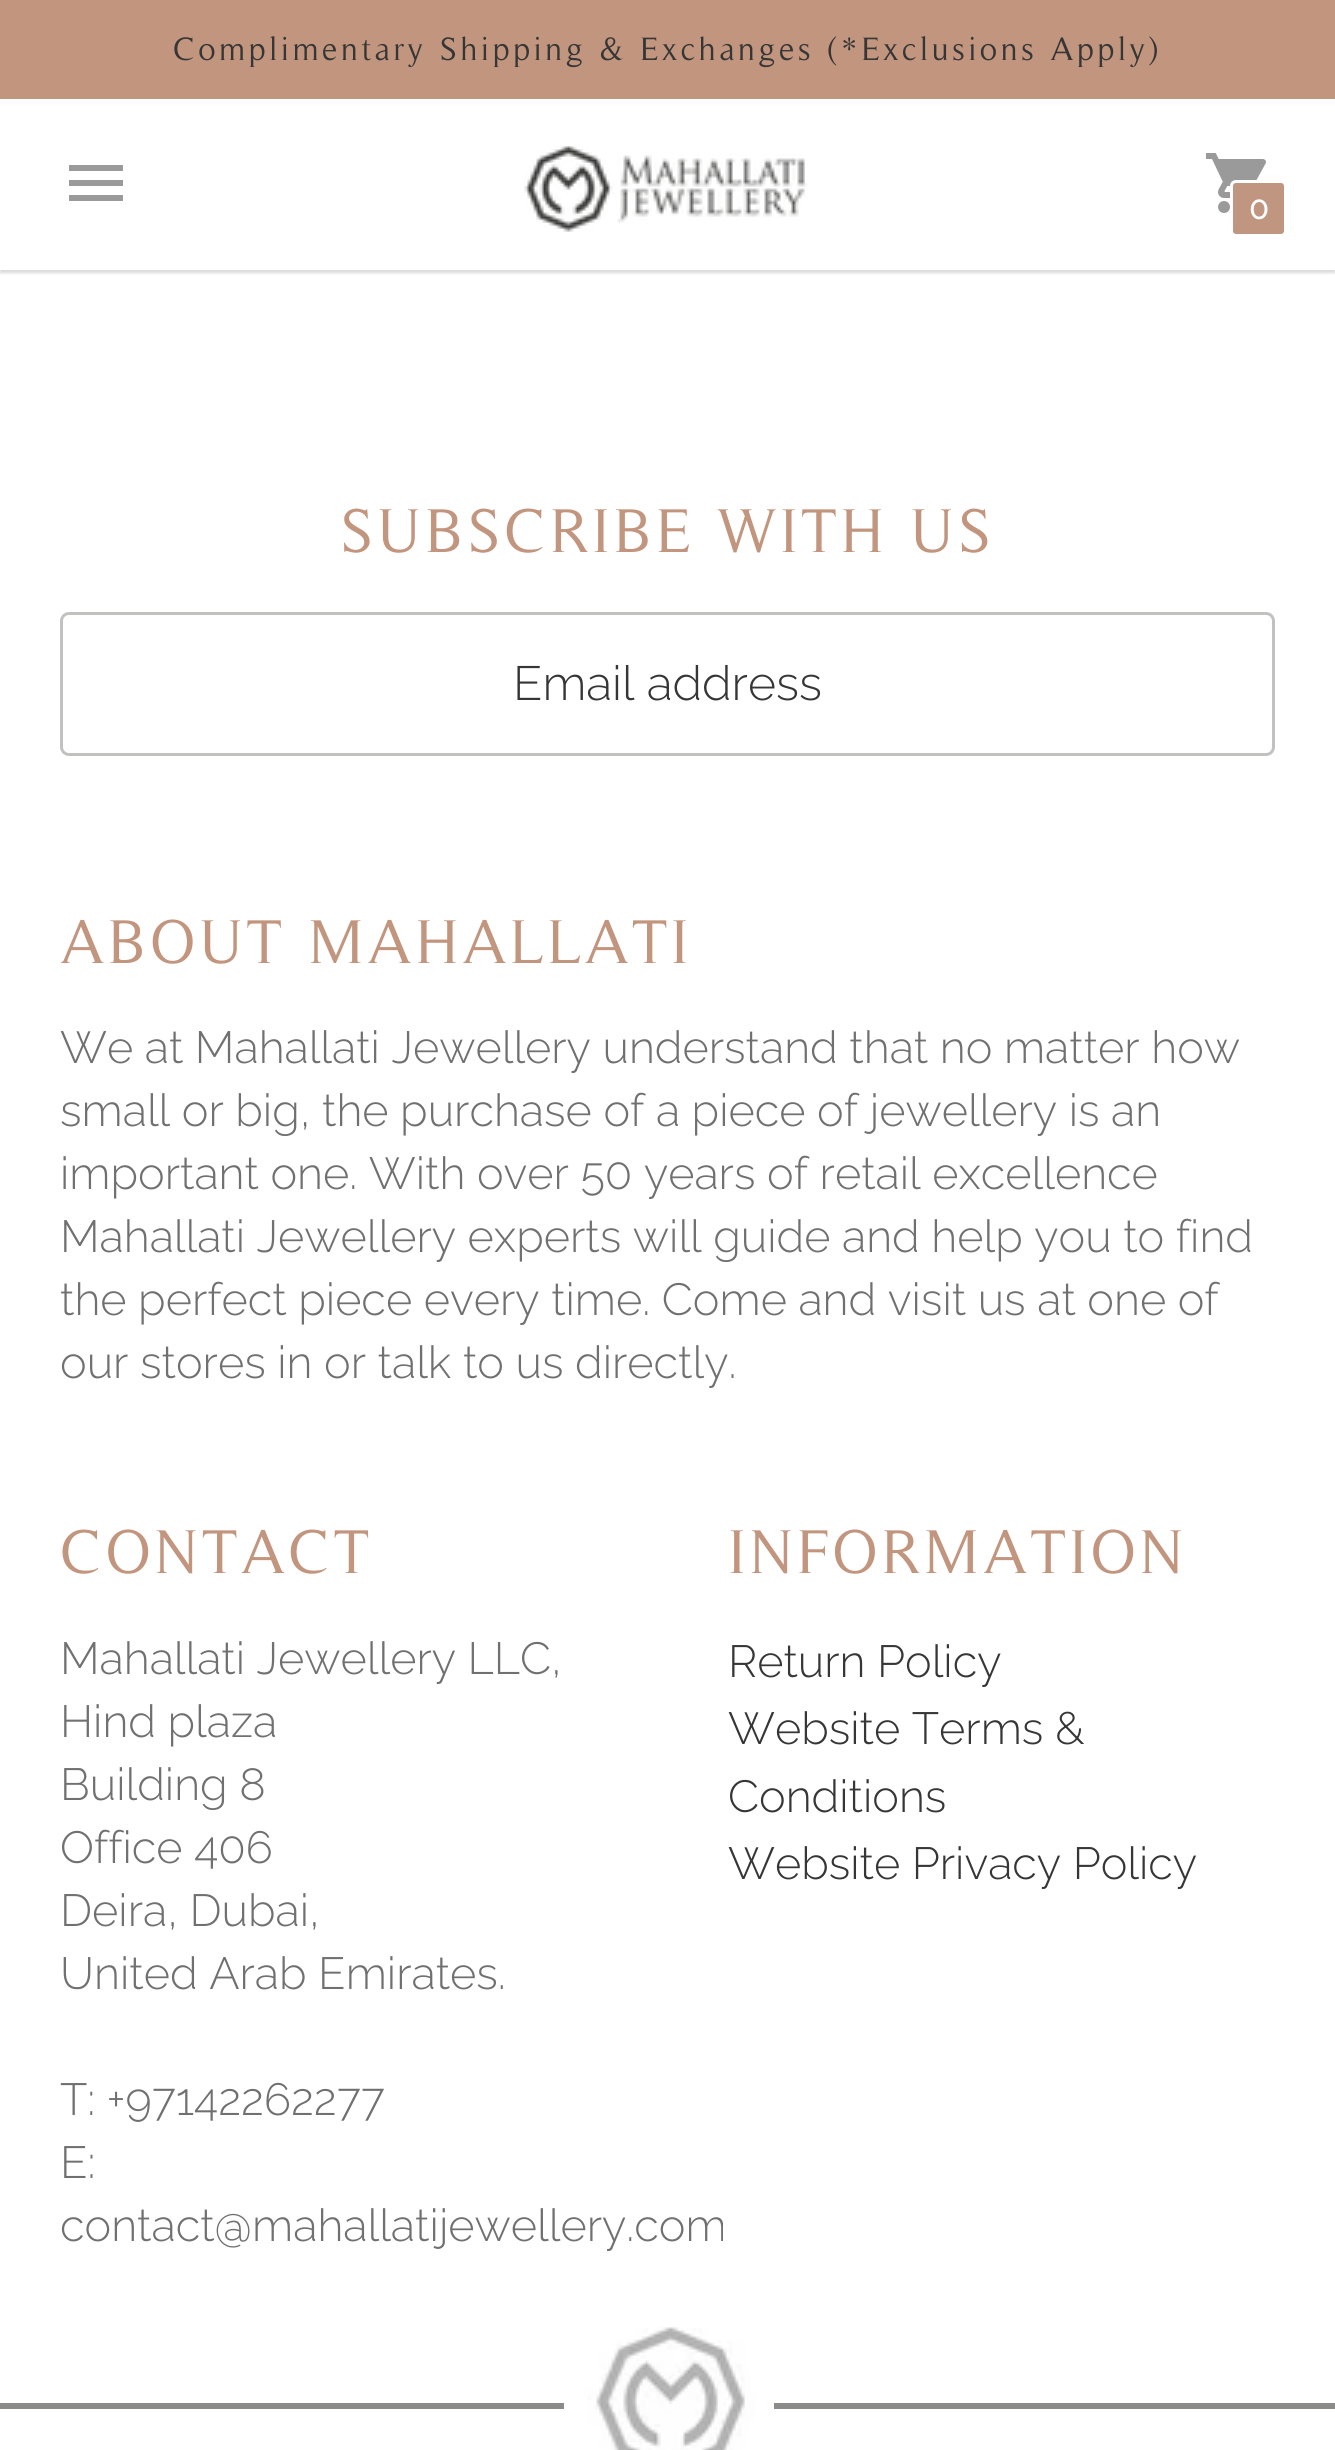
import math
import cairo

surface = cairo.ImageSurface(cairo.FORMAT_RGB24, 1335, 2450)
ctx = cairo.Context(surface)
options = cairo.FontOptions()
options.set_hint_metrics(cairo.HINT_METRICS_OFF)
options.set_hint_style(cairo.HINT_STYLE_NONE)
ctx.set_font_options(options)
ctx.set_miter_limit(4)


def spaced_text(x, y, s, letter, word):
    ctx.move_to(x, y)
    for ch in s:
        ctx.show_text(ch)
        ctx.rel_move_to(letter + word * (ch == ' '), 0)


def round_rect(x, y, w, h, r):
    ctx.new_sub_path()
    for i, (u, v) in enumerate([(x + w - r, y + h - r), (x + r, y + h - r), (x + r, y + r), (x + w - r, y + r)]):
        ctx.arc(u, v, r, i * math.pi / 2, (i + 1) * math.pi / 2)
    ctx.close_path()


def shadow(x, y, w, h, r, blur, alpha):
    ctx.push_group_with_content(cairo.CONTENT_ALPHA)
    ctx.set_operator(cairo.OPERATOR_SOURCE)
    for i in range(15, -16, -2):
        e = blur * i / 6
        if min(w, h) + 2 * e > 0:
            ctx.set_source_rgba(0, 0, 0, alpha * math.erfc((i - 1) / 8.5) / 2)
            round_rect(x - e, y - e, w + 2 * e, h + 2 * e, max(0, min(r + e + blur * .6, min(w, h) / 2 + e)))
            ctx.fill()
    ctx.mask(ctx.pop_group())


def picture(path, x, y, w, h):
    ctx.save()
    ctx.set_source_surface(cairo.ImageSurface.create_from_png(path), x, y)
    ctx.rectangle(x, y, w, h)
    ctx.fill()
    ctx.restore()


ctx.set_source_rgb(1, 1, 1)
ctx.paint()
ctx.set_source_rgb(0.761, 0.584, 0.494)
ctx.rectangle(0, 0, 1335, 99)
ctx.fill()
ctx.select_font_face("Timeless")
ctx.set_font_size(33)
ctx.set_source_rgb(0.212, 0.212, 0.212)
spaced_text(173, 60, "Complimentary Shipping & Exchanges (*Exclusions Apply)", 3.3, 0)
ctx.save()
ctx.rectangle(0, 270, 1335, 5)
ctx.clip()
ctx.set_source_rgb(0, 0, 0)
shadow(0, 102, 1335, 171, 0, 1.5, 0.15)
ctx.restore()
ctx.set_source_rgb(0.604, 0.604, 0.604)
ctx.new_path()
ctx.move_to(69, 201)
ctx.line_to(123, 201)
ctx.line_to(123, 195)
ctx.line_to(69, 195)
ctx.close_path()
ctx.move_to(69, 186)
ctx.line_to(123, 186)
ctx.line_to(123, 180)
ctx.line_to(69, 180)
ctx.close_path()
ctx.move_to(69, 165)
ctx.line_to(69, 171)
ctx.line_to(123, 171)
ctx.line_to(123, 165)
ctx.close_path()
ctx.fill()
picture("img1.png", 524, 145, 283, 87)
picture("img2.png", 1206, 153, 60, 60)
ctx.set_source_rgb(0.757, 0.588, 0.502)
round_rect(1231.5, 181.5, 54, 54, 4.5)
ctx.fill_preserve()
ctx.set_source_rgb(1, 1, 1)
ctx.set_line_width(3)
ctx.stroke()
ctx.select_font_face("Raleway Medium")
ctx.move_to(1249, 219)
ctx.show_text("0")
ctx.select_font_face("Timeless")
ctx.set_font_size(63)
ctx.set_source_rgb(0.761, 0.584, 0.494)
spaced_text(340, 552, "SUBSCRIBE WITH US", 3.6, 0)
round_rect(61.5, 613.5, 1212, 141, 7.5)
ctx.set_source_rgb(0.757, 0.757, 0.749)
ctx.stroke()
ctx.select_font_face("Raleway Light")
ctx.set_font_size(48)
ctx.set_source_rgb(0.212, 0.212, 0.212)
ctx.move_to(513, 700)
ctx.show_text("Email address")
ctx.select_font_face("Timeless")
ctx.set_font_size(63)
ctx.set_source_rgb(0.761, 0.584, 0.494)
spaced_text(60, 963, "ABOUT MAHALLATI", 3.6, 0)
ctx.select_font_face("Raleway Light")
ctx.set_font_size(45)
ctx.set_source_rgb(0.439, 0.439, 0.439)
ctx.move_to(60, 1063)
ctx.show_text("We at Mahallati Jewellery understand that no matter how")
ctx.move_to(60, 1126)
ctx.show_text("small or big, the purchase of a piece of jewellery is an")
ctx.move_to(60, 1189)
ctx.show_text("important one. With over 50 years of retail excellence")
ctx.move_to(60, 1252)
ctx.show_text("Mahallati Jewellery experts will guide and help you to find")
ctx.move_to(60, 1315)
ctx.show_text("the perfect piece every time. Come and visit us at one of")
ctx.move_to(60, 1378)
ctx.show_text("our stores in or talk to us directly.")
ctx.select_font_face("Timeless")
ctx.set_font_size(63)
ctx.set_source_rgb(0.761, 0.584, 0.494)
spaced_text(60, 1573, "CONTACT", 3.6, 0)
ctx.select_font_face("Raleway Light")
ctx.set_font_size(45)
ctx.set_source_rgb(0.439, 0.439, 0.439)
ctx.move_to(60, 1674)
ctx.show_text("Mahallati Jewellery LLC,")
ctx.move_to(60, 1737)
ctx.show_text("Hind plaza")
ctx.move_to(60, 1800)
ctx.show_text("Building 8")
ctx.move_to(60, 1863)
ctx.show_text("Office 406")
ctx.move_to(60, 1926)
ctx.show_text("Deira, Dubai,")
ctx.move_to(60, 1989)
ctx.show_text("United Arab Emirates.")
ctx.move_to(60, 2115)
ctx.show_text("T: +97142262277")
ctx.move_to(60, 2178)
ctx.show_text("E:")
ctx.move_to(60, 2241)
ctx.show_text("contact@mahallatijewellery.com")
ctx.select_font_face("Timeless")
ctx.set_font_size(63)
ctx.set_source_rgb(0.761, 0.584, 0.494)
spaced_text(728, 1573, "INFORMATION", 3.6, 0)
ctx.select_font_face("Raleway Light")
ctx.set_font_size(45)
ctx.set_source_rgb(0.212, 0.212, 0.212)
ctx.move_to(728, 1677)
ctx.show_text("Return Policy")
ctx.move_to(728, 1744)
ctx.show_text("Website Terms &")
ctx.move_to(728, 1812)
ctx.show_text("Conditions")
ctx.move_to(728, 1879)
ctx.show_text("Website Privacy Policy")
ctx.set_source_rgb(0.545, 0.545, 0.537)
ctx.rectangle(0, 2403, 1335, 6)
ctx.fill()
picture("img3.png", 564, 2327, 210, 123)
surface.write_to_png("page.png")
